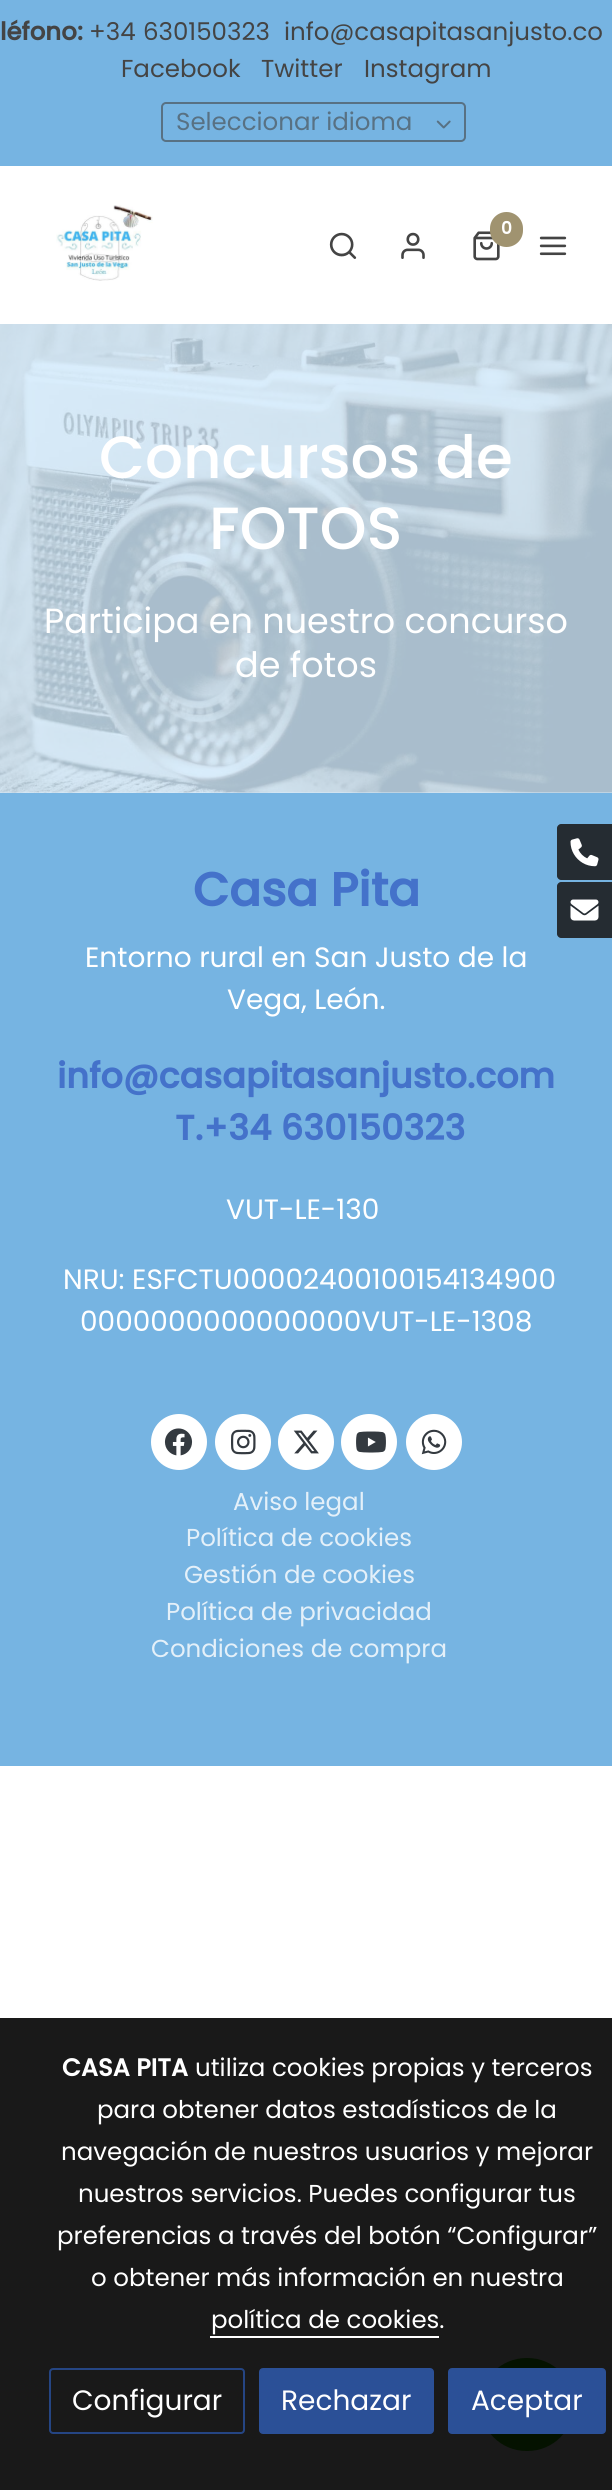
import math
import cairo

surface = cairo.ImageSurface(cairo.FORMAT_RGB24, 612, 2490)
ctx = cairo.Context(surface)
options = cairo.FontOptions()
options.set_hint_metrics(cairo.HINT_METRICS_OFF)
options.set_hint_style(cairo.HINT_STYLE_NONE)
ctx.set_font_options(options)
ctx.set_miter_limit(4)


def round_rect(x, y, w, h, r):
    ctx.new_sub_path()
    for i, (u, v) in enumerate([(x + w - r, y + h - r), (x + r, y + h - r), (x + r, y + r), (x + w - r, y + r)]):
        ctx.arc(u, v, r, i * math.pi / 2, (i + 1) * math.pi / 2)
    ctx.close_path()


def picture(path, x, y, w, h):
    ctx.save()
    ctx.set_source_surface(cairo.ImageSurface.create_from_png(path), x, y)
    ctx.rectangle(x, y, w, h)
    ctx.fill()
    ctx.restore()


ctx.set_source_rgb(1, 1, 1)
ctx.paint()
ctx.set_source_rgb(0.098, 0.098, 0.098)
ctx.rectangle(0, 2018, 612, 472)
ctx.fill()
ctx.set_source_rgb(0.863, 0.941, 1)
ctx.rectangle(0, 792, 612, 1)
ctx.fill()
ctx.set_source_rgb(0.463, 0.706, 0.886)
ctx.rectangle(0, 0, 612, 166)
ctx.fill()
ctx.select_font_face("Poppins", cairo.FONT_SLANT_NORMAL, cairo.FONT_WEIGHT_BOLD)
ctx.set_font_size(24.5)
ctx.set_source_rgb(0.267, 0.267, 0.267)
ctx.move_to(0, 40)
ctx.show_text("léfono:")
ctx.select_font_face("Poppins")
ctx.move_to(89, 40)
ctx.show_text("+34")
ctx.move_to(143, 40)
ctx.show_text("630150323")
ctx.move_to(284, 40)
ctx.show_text("info@casapitasanjusto.co")
ctx.move_to(121, 77)
ctx.show_text("Facebook")
ctx.move_to(261, 77)
ctx.show_text("Twitter")
ctx.move_to(364, 77)
ctx.show_text("Instagram")
round_rect(162, 103, 303, 38, 4)
ctx.set_source_rgb(0.345, 0.443, 0.514)
ctx.stroke()
ctx.move_to(176, 130)
ctx.show_text("Seleccionar idioma")
picture("img1.png", 436, 120, 15, 9)
picture("img2.png", 56, 205, 97, 76)
picture("img3.png", 473, 231, 27, 30)
ctx.set_source_rgb(0.627, 0.576, 0.439)
round_rect(490, 212, 33, 35, 16.5)
ctx.fill()
ctx.select_font_face("Poppins", cairo.FONT_SLANT_NORMAL, cairo.FONT_WEIGHT_BOLD)
ctx.set_font_size(17)
ctx.set_source_rgb(1, 1, 1)
ctx.move_to(501, 234)
ctx.show_text("0")
picture("img4.png", 329, 232, 28, 27)
picture("img5.png", 401, 232, 24, 27)
picture("img6.png", 539, 236, 28, 20)
picture("img7.png", 0, 324, 612, 469)
ctx.select_font_face("Poppins Medium")
ctx.set_font_size(59.5)
ctx.move_to(99, 478)
ctx.show_text("Concursos de")
ctx.move_to(209, 549)
ctx.show_text("FOTOS")
ctx.select_font_face("Poppins")
ctx.set_font_size(35)
ctx.move_to(44, 633)
ctx.show_text("Participa en nuestro concurso")
ctx.move_to(235, 677)
ctx.show_text("de fotos")
ctx.set_source_rgb(0.463, 0.706, 0.886)
ctx.rectangle(0, 793, 612, 973)
ctx.fill()
ctx.select_font_face("Poppins", cairo.FONT_SLANT_NORMAL, cairo.FONT_WEIGHT_BOLD)
ctx.set_font_size(47)
ctx.set_source_rgb(0.267, 0.447, 0.792)
ctx.move_to(193, 906)
ctx.show_text("Casa Pita")
ctx.select_font_face("Poppins")
ctx.set_font_size(28)
ctx.set_source_rgb(1, 1, 1)
ctx.move_to(85, 967)
ctx.show_text("Entorno rural en San Justo de la")
ctx.move_to(227, 1009)
ctx.show_text("Vega, León.")
ctx.select_font_face("Poppins", cairo.FONT_SLANT_NORMAL, cairo.FONT_WEIGHT_BOLD)
ctx.set_font_size(35)
ctx.set_source_rgb(0.267, 0.447, 0.792)
ctx.move_to(57, 1088)
ctx.show_text("info@casapitasanjusto.com")
ctx.move_to(175, 1140)
ctx.show_text("T.+34 630150323")
ctx.select_font_face("Poppins")
ctx.set_font_size(28)
ctx.set_source_rgb(1, 1, 1)
ctx.move_to(226, 1219)
ctx.show_text("VUT-LE-130")
ctx.move_to(63, 1289)
ctx.show_text("NRU: ESFCTU00002400100154134900")
ctx.move_to(80, 1331)
ctx.show_text("0000000000000000VUT-LE-1308")
ctx.new_path()
ctx.arc(179, 1442, 28, 0, 2 * math.pi)
ctx.fill()
picture("img8.png", 164, 1428, 29, 28)
ctx.arc(243, 1442, 28, 0, 2 * math.pi)
ctx.fill()
picture("img9.png", 231, 1429, 25, 26)
ctx.arc(306, 1442, 28, 0, 2 * math.pi)
ctx.fill()
picture("img10.png", 293, 1430, 26, 24)
ctx.arc(369, 1442, 28, 0, 2 * math.pi)
ctx.fill()
picture("img11.png", 356, 1431, 30, 22)
ctx.arc(434, 1442, 28, 0, 2 * math.pi)
ctx.fill()
picture("img12.png", 421, 1429, 26, 26)
ctx.set_font_size(24.5)
ctx.set_source_rgb(0.894, 0.941, 0.976)
ctx.move_to(233, 1510)
ctx.show_text("Aviso legal")
ctx.move_to(186, 1546)
ctx.show_text("Política de cookies")
ctx.move_to(184, 1583)
ctx.show_text("Gestión de cookies")
ctx.move_to(166, 1620)
ctx.show_text("Política de privacidad")
ctx.move_to(151, 1657)
ctx.show_text("Condiciones de compra")
ctx.set_source_rgb(0.145, 0.173, 0.196)
ctx.new_path()
ctx.move_to(561, 824)
ctx.line_to(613, 824)
ctx.line_to(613, 880)
ctx.line_to(561, 880)
ctx.curve_to(559, 880, 557, 878, 557, 876)
ctx.line_to(557, 828)
ctx.curve_to(557, 826, 559, 824, 561, 824)
ctx.close_path()
ctx.fill()
picture("img13.png", 570, 838, 29, 29)
ctx.new_path()
ctx.move_to(561, 882)
ctx.line_to(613, 882)
ctx.line_to(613, 938)
ctx.line_to(561, 938)
ctx.curve_to(559, 938, 557, 936, 557, 934)
ctx.line_to(557, 886)
ctx.curve_to(557, 884, 559, 882, 561, 882)
ctx.close_path()
ctx.fill()
picture("img14.png", 570, 899, 29, 22)
ctx.select_font_face("Poppins", cairo.FONT_SLANT_NORMAL, cairo.FONT_WEIGHT_BOLD)
ctx.set_source_rgb(1, 1, 1)
ctx.move_to(62, 2076)
ctx.show_text("CASA PITA")
ctx.select_font_face("Poppins")
ctx.move_to(195, 2076)
ctx.show_text("utiliza cookies propias y terceros")
ctx.move_to(97, 2118)
ctx.show_text("para obtener datos estadísticos de la")
ctx.move_to(61, 2160)
ctx.show_text("navegación de nuestros usuarios y mejorar")
ctx.move_to(78, 2202)
ctx.show_text("nuestros servicios. Puedes configurar tus")
ctx.move_to(57, 2244)
ctx.show_text("preferencias a través del botón “Configurar”")
ctx.move_to(91, 2286)
ctx.show_text("o obtener más información en nuestra")
ctx.move_to(211, 2328)
ctx.show_text("política de cookies.")
ctx.rectangle(210, 2336, 229, 2)
ctx.fill()
round_rect(50, 2369, 194, 64, 3)
ctx.set_source_rgb(0.145, 0.271, 0.514)
ctx.stroke()
ctx.set_font_size(28)
ctx.set_source_rgb(1, 1, 1)
ctx.move_to(72, 2410)
ctx.show_text("Configurar")
ctx.set_source_rgb(0.169, 0.314, 0.592)
round_rect(260, 2369, 173, 64, 3)
ctx.fill_preserve()
ctx.stroke()
ctx.set_source_rgb(1, 1, 1)
ctx.move_to(281, 2410)
ctx.show_text("Rechazar")
ctx.set_source_rgb(0.016, 0.071, 0)
round_rect(478, 2356, 98, 97, 48.5)
ctx.fill_preserve()
ctx.set_source_rgb(0.098, 0.098, 0.098)
ctx.set_line_width(4)
ctx.stroke()
ctx.set_source_rgb(0.169, 0.314, 0.592)
round_rect(449, 2369, 156, 64, 3)
ctx.fill_preserve()
ctx.set_line_width(2)
ctx.stroke()
ctx.set_source_rgb(1, 1, 1)
ctx.move_to(471, 2410)
ctx.show_text("Aceptar")
surface.write_to_png("page.png")
